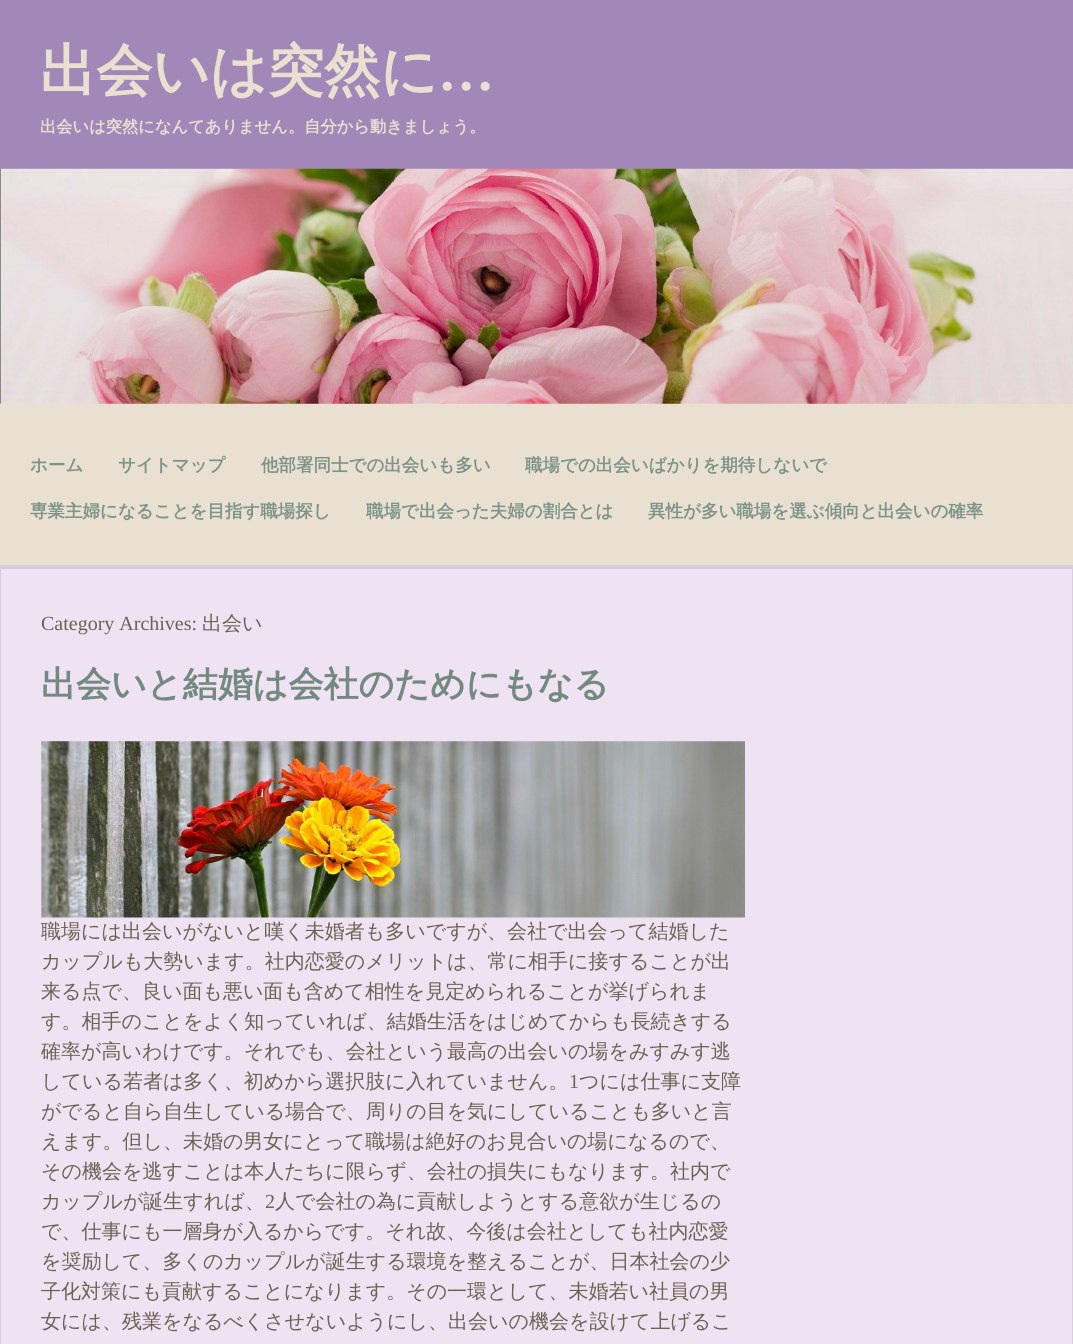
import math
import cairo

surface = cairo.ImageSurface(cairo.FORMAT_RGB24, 1073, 1344)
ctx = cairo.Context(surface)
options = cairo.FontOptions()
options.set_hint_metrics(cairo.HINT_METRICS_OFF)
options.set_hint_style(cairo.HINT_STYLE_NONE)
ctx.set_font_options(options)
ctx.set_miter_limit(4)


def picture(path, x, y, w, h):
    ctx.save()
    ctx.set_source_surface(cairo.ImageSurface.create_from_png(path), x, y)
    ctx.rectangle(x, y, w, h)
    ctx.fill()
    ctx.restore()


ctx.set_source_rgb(0.914, 0.878, 0.82)
ctx.paint()
ctx.set_source_rgb(0.631, 0.533, 0.725)
ctx.rectangle(0, 0, 1073, 169)
ctx.fill()
ctx.select_font_face("WenQuanYi Zen Hei", cairo.FONT_SLANT_NORMAL, cairo.FONT_WEIGHT_BOLD)
ctx.set_font_size(56.25)
ctx.set_source_rgb(0.914, 0.878, 0.82)
ctx.move_to(40, 90)
ctx.show_text("出会いは突然に")
ctx.select_font_face("Liberation Serif", cairo.FONT_SLANT_NORMAL, cairo.FONT_WEIGHT_BOLD)
ctx.move_to(438, 90)
ctx.show_text("…")
ctx.select_font_face("WenQuanYi Zen Hei", cairo.FONT_SLANT_NORMAL, cairo.FONT_WEIGHT_BOLD)
ctx.set_font_size(16.25)
ctx.move_to(40, 132)
ctx.show_text("出会いは突然になんてありません。自分から動きましょう。")
picture("img1.png", 0, 168, 1073, 236)
ctx.set_font_size(17.5)
ctx.set_source_rgb(0.486, 0.58, 0.541)
ctx.move_to(30, 471)
ctx.show_text("ホーム")
ctx.move_to(118, 471)
ctx.show_text("サイトマップ")
ctx.move_to(261, 471)
ctx.show_text("他部署同士での出会いも多い")
ctx.move_to(525, 471)
ctx.show_text("職場での出会いばかりを期待しないで")
ctx.move_to(30, 517)
ctx.show_text("専業主婦になることを目指す職場探し")
ctx.move_to(366, 517)
ctx.show_text("職場で出会った夫婦の割合とは")
ctx.move_to(648, 517)
ctx.show_text("異性が多い職場を選ぶ傾向と出会いの確率")
ctx.set_source_rgb(0.937, 0.89, 0.953)
ctx.rectangle(0, 565, 1073, 779)
ctx.fill()
ctx.set_source_rgb(0.843, 0.8, 0.859)
ctx.new_path()
ctx.move_to(0, 565)
ctx.line_to(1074, 565)
ctx.line_to(1072, 569)
ctx.line_to(1, 569)
ctx.close_path()
ctx.fill()
ctx.set_source_rgba(0, 0, 0, 0.1)
ctx.new_path()
ctx.move_to(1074, 565)
ctx.line_to(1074, 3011)
ctx.line_to(1072, 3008)
ctx.line_to(1072, 569)
ctx.close_path()
ctx.fill()
ctx.new_path()
ctx.move_to(0, 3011)
ctx.line_to(0, 565)
ctx.line_to(1, 569)
ctx.line_to(1, 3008)
ctx.close_path()
ctx.fill()
ctx.select_font_face("Liberation Serif")
ctx.set_font_size(20)
ctx.set_source_rgb(0.42, 0.384, 0.322)
ctx.move_to(41, 630)
ctx.show_text("Category Archives:")
ctx.select_font_face("WenQuanYi Zen Hei Medium")
ctx.move_to(202, 630)
ctx.show_text("出会い")
ctx.select_font_face("WenQuanYi Zen Hei", cairo.FONT_SLANT_NORMAL, cairo.FONT_WEIGHT_BOLD)
ctx.set_font_size(35)
ctx.set_source_rgb(0.455, 0.541, 0.506)
ctx.move_to(41, 696)
ctx.show_text("出会いと結婚は会社のためにもなる")
picture("img2.png", 41, 741, 704, 177)
ctx.select_font_face("WenQuanYi Zen Hei Medium")
ctx.set_font_size(20)
ctx.set_source_rgb(0.42, 0.384, 0.322)
ctx.move_to(41, 938)
ctx.show_text("職場には出会いがないと嘆く未婚者も多いですが、会社で出会って結婚した")
ctx.move_to(41, 968)
ctx.show_text("カップルも大勢います。社内恋愛のメリットは、常に相手に接することが出")
ctx.move_to(41, 998)
ctx.show_text("来る点で、良い面も悪い面も含めて相性を見定められることが挙げられま")
ctx.move_to(41, 1028)
ctx.show_text("す。相手のことをよく知っていれば、結婚生活をはじめてからも長続きする")
ctx.move_to(41, 1058)
ctx.show_text("確率が高いわけです。それでも、会社という最高の出会いの場をみすみす逃")
ctx.move_to(41, 1088)
ctx.show_text("している若者は多く、初めから選択肢に入れていません。")
ctx.select_font_face("Liberation Serif")
ctx.move_to(569, 1088)
ctx.show_text("1")
ctx.select_font_face("WenQuanYi Zen Hei Medium")
ctx.move_to(579, 1088)
ctx.show_text("つには仕事に支障")
ctx.move_to(41, 1118)
ctx.show_text("がでると自ら自生している場合で、周りの目を気にしていることも多いと言")
ctx.move_to(41, 1148)
ctx.show_text("えます。但し、未婚の男女にとって職場は絶好のお見合いの場になるので、")
ctx.move_to(41, 1178)
ctx.show_text("その機会を逃すことは本人たちに限らず、会社の損失にもなります。社内で")
ctx.move_to(41, 1208)
ctx.show_text("カップルが誕生すれば、")
ctx.select_font_face("Liberation Serif")
ctx.move_to(265, 1208)
ctx.show_text("2")
ctx.select_font_face("WenQuanYi Zen Hei Medium")
ctx.move_to(275, 1208)
ctx.show_text("人で会社の為に貢献しようとする意欲が生じるの")
ctx.move_to(41, 1238)
ctx.show_text("で、仕事にも一層身が入るからです。それ故、今後は会社としても社内恋愛")
ctx.move_to(41, 1268)
ctx.show_text("を奨励して、多くのカップルが誕生する環境を整えることが、日本社会の少")
ctx.move_to(41, 1298)
ctx.show_text("子化対策にも貢献することになります。その一環として、未婚若い社員の男")
ctx.move_to(41, 1328)
ctx.show_text("女には、残業をなるべくさせないようにし、出会いの機会を設けて上げるこ")
surface.write_to_png("page.png")
